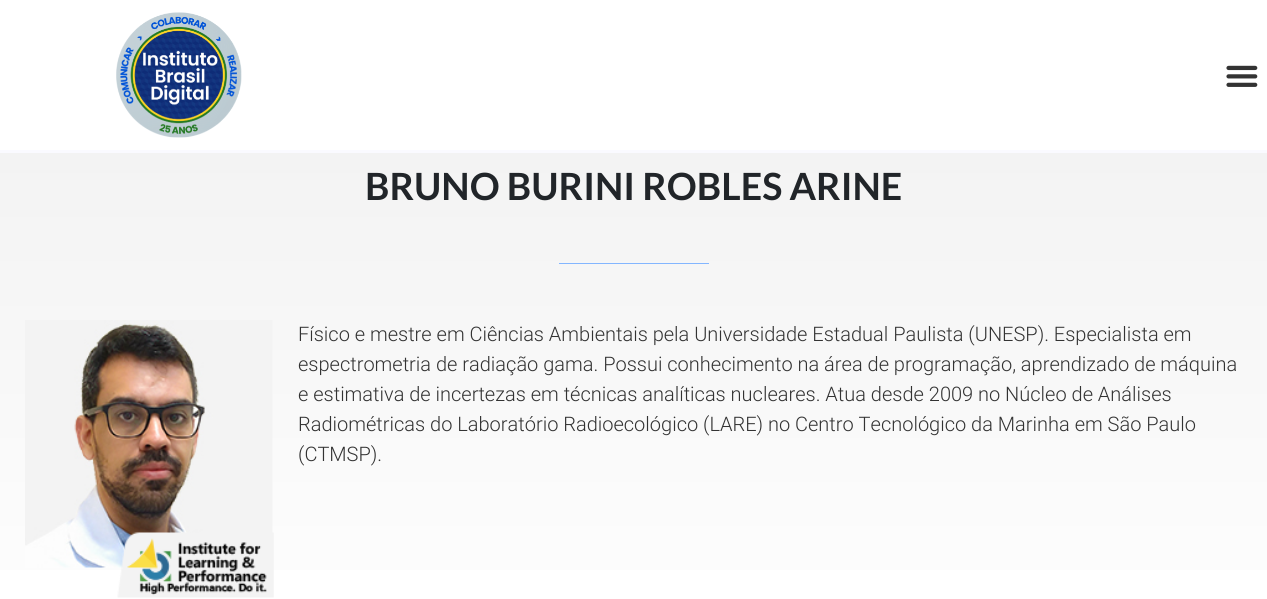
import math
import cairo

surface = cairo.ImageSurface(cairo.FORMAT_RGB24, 1267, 599)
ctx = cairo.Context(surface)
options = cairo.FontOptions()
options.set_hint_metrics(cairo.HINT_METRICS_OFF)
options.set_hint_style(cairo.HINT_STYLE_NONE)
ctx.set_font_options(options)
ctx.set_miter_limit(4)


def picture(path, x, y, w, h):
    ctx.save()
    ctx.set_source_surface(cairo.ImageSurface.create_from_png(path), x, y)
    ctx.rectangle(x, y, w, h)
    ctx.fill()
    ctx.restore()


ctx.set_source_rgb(1, 1, 1)
ctx.paint()
ctx.set_source_rgb(0.98, 0.98, 1)
ctx.rectangle(0, 150, 1267, 3)
ctx.fill()
picture("img1.png", 116, 12, 126, 126)
picture("img2.png", 1226, 65, 32, 22)
gradient = cairo.LinearGradient(634, 152, 634, 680)
gradient.add_color_stop_rgba(0, 0.953, 0.953, 0.953, 1)
gradient.add_color_stop_rgba(1, 1, 1, 1, 1)
ctx.set_source(gradient)
ctx.rectangle(0, 153, 1267, 417)
ctx.fill()
ctx.select_font_face("Lato", cairo.FONT_SLANT_NORMAL, cairo.FONT_WEIGHT_BOLD)
ctx.set_font_size(37.5)
ctx.set_source_rgb(0.129, 0.145, 0.161)
ctx.move_to(365, 200)
ctx.show_text("BRUNO BURINI ROBLES ARINE")
ctx.set_source_rgb(0.514, 0.714, 1)
ctx.rectangle(559, 263, 150, 1)
ctx.fill()
picture("img3.png", 25, 320, 248, 248)
picture("img4.png", 117, 532, 157, 66)
ctx.select_font_face("Roboto Light")
ctx.set_font_size(20)
ctx.set_source_rgb(0.2, 0.2, 0.2)
ctx.move_to(298, 341)
ctx.show_text("Físico e mestre em Ciências Ambientais pela Universidade Estadual Paulista (UNESP). Especialista em")
ctx.move_to(298, 371)
ctx.show_text("espectrometria de radiação gama. Possui conhecimento na área de programação, aprendizado de máquina")
ctx.move_to(298, 401)
ctx.show_text("e estimativa de incertezas em técnicas analíticas nucleares. Atua desde 2009 no Núcleo de Análises")
ctx.move_to(298, 431)
ctx.show_text("Radiométricas do Laboratório Radioecológico (LARE) no Centro Tecnológico da Marinha em São Paulo")
ctx.move_to(298, 461)
ctx.show_text("(CTMSP).")
surface.write_to_png("page.png")
